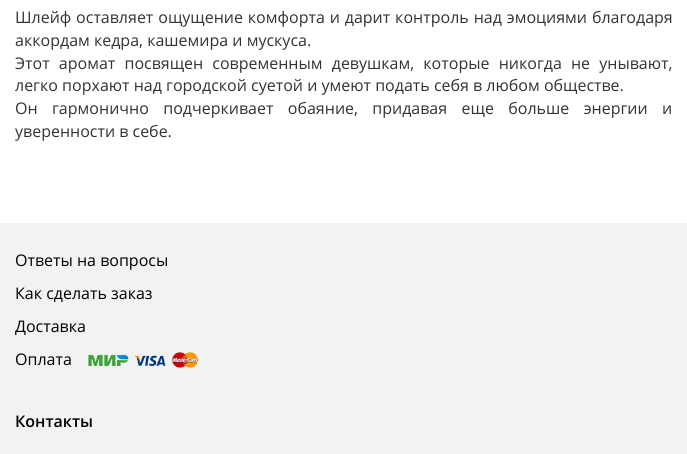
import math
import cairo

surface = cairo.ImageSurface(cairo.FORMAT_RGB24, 687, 454)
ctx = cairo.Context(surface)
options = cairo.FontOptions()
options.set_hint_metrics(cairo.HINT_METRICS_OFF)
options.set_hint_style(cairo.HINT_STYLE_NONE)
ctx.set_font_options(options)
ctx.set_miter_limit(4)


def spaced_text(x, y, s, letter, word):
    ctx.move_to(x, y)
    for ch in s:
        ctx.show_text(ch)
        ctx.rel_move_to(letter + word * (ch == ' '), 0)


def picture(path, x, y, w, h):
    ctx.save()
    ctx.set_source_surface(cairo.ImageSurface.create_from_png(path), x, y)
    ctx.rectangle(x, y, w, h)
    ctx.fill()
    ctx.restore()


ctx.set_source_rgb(1, 1, 1)
ctx.paint()
ctx.select_font_face("Open Sans")
ctx.set_font_size(16)
ctx.set_source_rgb(0.2, 0.2, 0.2)
spaced_text(15, 23, "Шлейф оставляет ощущение комфорта и дарит контроль над эмоциями благодаря", 0, 0.75)
ctx.move_to(15, 46)
ctx.show_text("аккордам кедра, кашемира и мускуса.")
spaced_text(15, 69, "Этот аромат посвящен современным девушкам, которые никогда не унывают,", 0, 5)
ctx.move_to(15, 91)
ctx.show_text("легко порхают над городской суетой и умеют подать себя в любом обществе.")
spaced_text(15, 114, "Он гармонично подчеркивает обаяние, придавая еще больше энергии и", 0, 10.25)
ctx.move_to(15, 137)
ctx.show_text("уверенности в себе.")
ctx.set_source_rgb(0.949, 0.949, 0.949)
ctx.rectangle(0, 223, 687, 231)
ctx.fill()
ctx.set_source_rgb(0, 0, 0)
ctx.move_to(15, 266)
ctx.show_text("Ответы на вопросы")
ctx.move_to(15, 299)
ctx.show_text("Как сделать заказ")
ctx.move_to(15, 332)
ctx.show_text("Доставка")
ctx.move_to(15, 365)
ctx.show_text("Оплата")
picture("img1.png", 88, 352, 111, 16)
ctx.select_font_face("Open Sans SemiBold")
ctx.move_to(15, 427)
ctx.show_text("Контакты")
surface.write_to_png("page.png")
